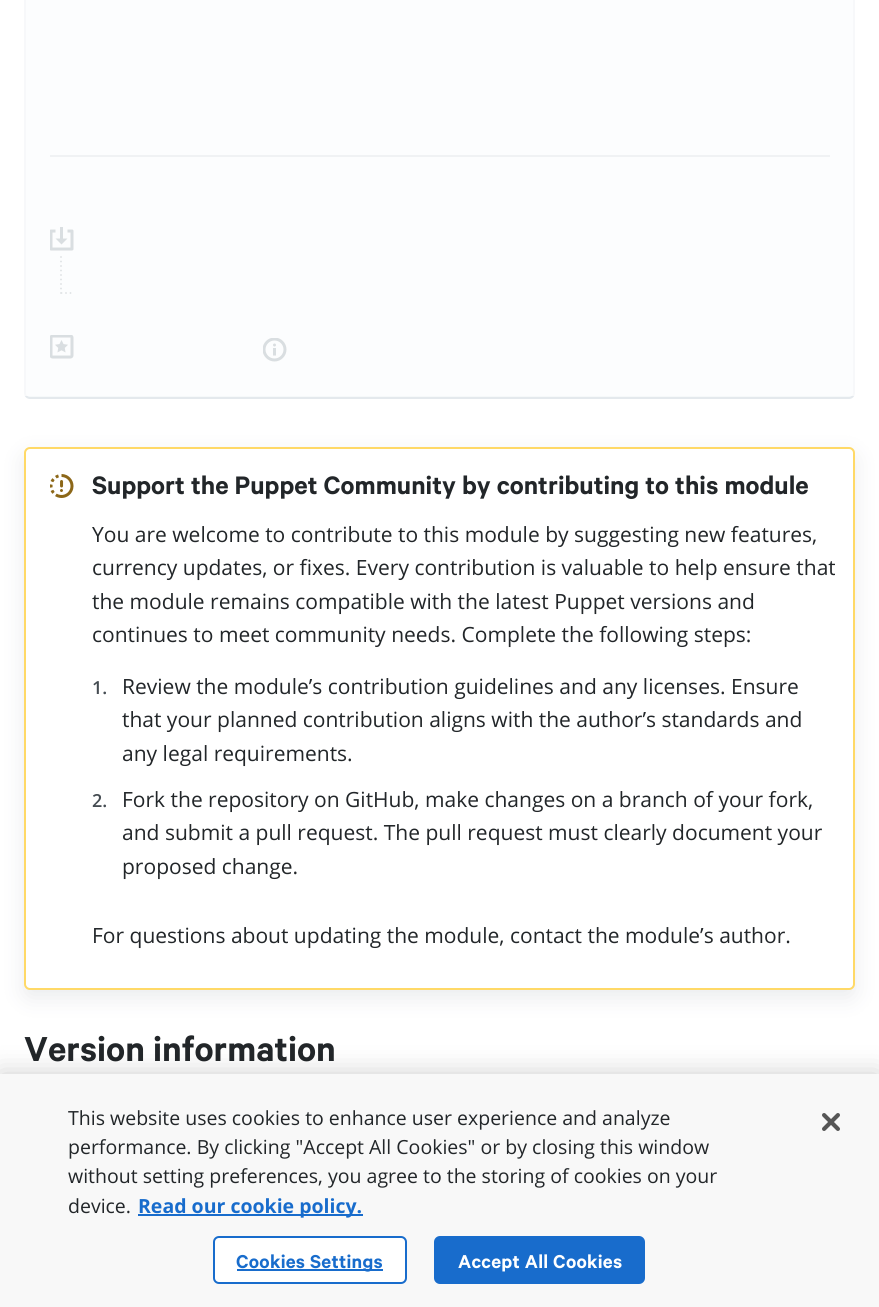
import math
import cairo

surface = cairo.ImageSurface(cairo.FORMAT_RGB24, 879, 1307)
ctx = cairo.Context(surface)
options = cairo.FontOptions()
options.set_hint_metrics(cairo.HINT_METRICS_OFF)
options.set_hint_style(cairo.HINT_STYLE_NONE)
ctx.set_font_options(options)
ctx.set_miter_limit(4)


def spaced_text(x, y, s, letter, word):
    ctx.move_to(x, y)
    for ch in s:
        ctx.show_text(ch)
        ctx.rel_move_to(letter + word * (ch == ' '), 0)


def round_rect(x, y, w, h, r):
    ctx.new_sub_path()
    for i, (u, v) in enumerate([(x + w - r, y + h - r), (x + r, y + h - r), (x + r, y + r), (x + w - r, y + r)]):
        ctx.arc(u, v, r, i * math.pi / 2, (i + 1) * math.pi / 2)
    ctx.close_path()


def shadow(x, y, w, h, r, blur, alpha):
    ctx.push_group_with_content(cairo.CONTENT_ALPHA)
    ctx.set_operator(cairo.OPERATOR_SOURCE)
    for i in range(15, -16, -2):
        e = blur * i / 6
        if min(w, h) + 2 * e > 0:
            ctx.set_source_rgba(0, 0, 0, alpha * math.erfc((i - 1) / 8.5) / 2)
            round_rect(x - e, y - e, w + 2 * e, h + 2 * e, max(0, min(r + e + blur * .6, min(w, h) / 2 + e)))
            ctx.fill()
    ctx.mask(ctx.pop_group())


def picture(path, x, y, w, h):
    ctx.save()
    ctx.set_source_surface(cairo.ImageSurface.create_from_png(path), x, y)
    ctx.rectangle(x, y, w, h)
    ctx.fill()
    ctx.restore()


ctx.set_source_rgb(1, 1, 1)
ctx.paint()
ctx.set_source_rgb(0.961, 0.973, 0.98)
round_rect(25, -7, 829, 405, 5)
ctx.fill_preserve()
ctx.set_source_rgb(0.894, 0.914, 0.929)
ctx.stroke()
ctx.set_source_rgb(0.8, 0.831, 0.851)
ctx.rectangle(50, 155, 780, 2)
ctx.fill()
picture("img1.png", 50, 227, 24, 24)
ctx.new_path()
ctx.move_to(61, 293)
ctx.line_to(61, 254)
ctx.move_to(61.5, 293)
ctx.line_to(73.5, 293)
ctx.set_source_rgb(0.506, 0.561, 0.6)
ctx.set_line_width(1.5)
ctx.set_line_cap(cairo.LINE_CAP_SQUARE)
ctx.set_dash([0, 4.5])
ctx.stroke()
picture("img2.png", 50, 335, 24, 24)
picture("img3.png", 263, 338, 24, 24)
ctx.set_source_rgba(1, 1, 1, 0.7)
ctx.rectangle(24, 0, 831, 396)
ctx.fill()
ctx.set_source_rgb(0.584, 0.616, 0.647)
shadow(24, 455, 831, 543, 6, 11, 0.2)
ctx.set_source_rgb(1, 1, 1)
round_rect(25, 448, 829, 541, 5)
ctx.fill_preserve()
ctx.set_source_rgb(1, 0.851, 0.404)
ctx.set_line_width(2)
ctx.set_line_cap(cairo.LINE_CAP_BUTT)
ctx.set_dash([])
ctx.stroke()
picture("img4.png", 50, 474, 24, 24)
ctx.select_font_face("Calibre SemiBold")
ctx.set_font_size(28.5)
ctx.set_source_rgb(0.133, 0.149, 0.161)
ctx.move_to(92, 494)
ctx.show_text("Support the Puppet Community by contributing to this module")
ctx.select_font_face("Open Sans")
ctx.set_font_size(21)
ctx.move_to(92, 542)
ctx.show_text("You are welcome to contribute to this module by suggesting new features,")
ctx.move_to(92, 575)
ctx.show_text("currency updates, or fixes. Every contribution is valuable to help ensure that")
ctx.move_to(92, 609)
ctx.show_text("the module remains compatible with the latest Puppet versions and")
ctx.move_to(92, 642)
ctx.show_text("continues to meet community needs. Complete the following steps:")
ctx.select_font_face("Open Sans SemiBold")
ctx.set_font_size(18)
ctx.set_source_rgb(0.271, 0.298, 0.322)
ctx.move_to(92, 694)
ctx.show_text("1.")
ctx.select_font_face("Open Sans")
ctx.set_font_size(21)
ctx.set_source_rgb(0.133, 0.149, 0.161)
ctx.move_to(122, 694)
ctx.show_text("Review the module’s contribution guidelines and any licenses. Ensure")
ctx.move_to(122, 727)
ctx.show_text("that your planned contribution aligns with the author’s standards and")
ctx.move_to(122, 761)
ctx.show_text("any legal requirements.")
ctx.select_font_face("Open Sans SemiBold")
ctx.set_font_size(18)
ctx.set_source_rgb(0.271, 0.298, 0.322)
ctx.move_to(92, 807)
ctx.show_text("2.")
ctx.select_font_face("Open Sans")
ctx.set_font_size(21)
ctx.set_source_rgb(0.133, 0.149, 0.161)
ctx.move_to(122, 807)
ctx.show_text("Fork the repository on GitHub, make changes on a branch of your fork,")
ctx.move_to(122, 840)
ctx.show_text("and submit a pull request. The pull request must clearly document your")
ctx.move_to(122, 874)
ctx.show_text("proposed change.")
ctx.move_to(92, 943)
ctx.show_text("For questions about updating the module, contact the module’s author.")
ctx.select_font_face("Calibre SemiBold")
ctx.set_font_size(39)
ctx.move_to(24, 1061)
ctx.show_text("Version information")
ctx.set_source_rgb(0, 0, 0)
shadow(0, 1074, 879, 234, 0, 13.5, 0.2)
ctx.set_source_rgb(0.969, 0.969, 0.969)
ctx.rectangle(0, 1074, 879, 233)
ctx.fill()
ctx.select_font_face("Open Sans")
ctx.set_font_size(19.5)
ctx.set_source_rgb(0.133, 0.149, 0.161)
ctx.move_to(68, 1125)
ctx.show_text("This website uses cookies to enhance user experience and analyze")
ctx.move_to(68, 1154)
ctx.show_text("performance. By clicking \"Accept All Cookies\" or by closing this window")
ctx.move_to(68, 1183)
ctx.show_text("without setting preferences, you agree to the storing of cookies on your")
ctx.move_to(68, 1213)
ctx.show_text("device.")
ctx.set_source_rgb(0.094, 0.424, 0.8)
ctx.rectangle(138, 1214, 225, 2)
ctx.fill()
ctx.select_font_face("Open Sans", cairo.FONT_SLANT_NORMAL, cairo.FONT_WEIGHT_BOLD)
ctx.move_to(138, 1213)
ctx.show_text("Read our cookie policy.")
ctx.set_source_rgb(1, 1, 1)
round_rect(214, 1237, 192, 46, 5)
ctx.fill_preserve()
ctx.set_source_rgb(0.094, 0.424, 0.8)
ctx.stroke()
ctx.rectangle(237, 1269, 146, 2)
ctx.fill()
ctx.select_font_face("Calibre SemiBold")
ctx.set_font_size(21)
spaced_text(236, 1268, "Cookies Settings", 0.25, 0)
round_rect(435, 1237, 209, 46, 5)
ctx.fill_preserve()
ctx.stroke()
ctx.set_source_rgb(1, 1, 1)
spaced_text(458, 1268, "Accept All Cookies", 0.25, 0)
picture("img5.png", 822, 1113, 18, 18)
surface.write_to_png("page.png")
